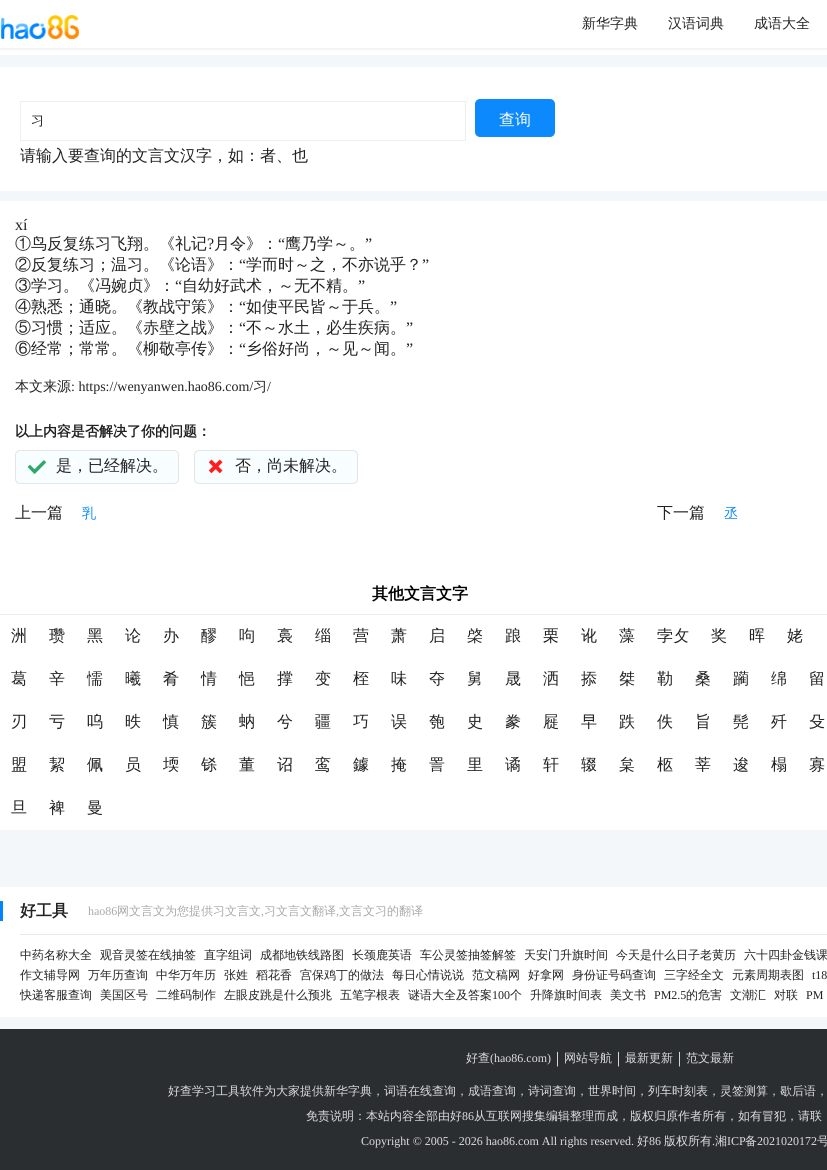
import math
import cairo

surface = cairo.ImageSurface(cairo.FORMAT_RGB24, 827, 1170)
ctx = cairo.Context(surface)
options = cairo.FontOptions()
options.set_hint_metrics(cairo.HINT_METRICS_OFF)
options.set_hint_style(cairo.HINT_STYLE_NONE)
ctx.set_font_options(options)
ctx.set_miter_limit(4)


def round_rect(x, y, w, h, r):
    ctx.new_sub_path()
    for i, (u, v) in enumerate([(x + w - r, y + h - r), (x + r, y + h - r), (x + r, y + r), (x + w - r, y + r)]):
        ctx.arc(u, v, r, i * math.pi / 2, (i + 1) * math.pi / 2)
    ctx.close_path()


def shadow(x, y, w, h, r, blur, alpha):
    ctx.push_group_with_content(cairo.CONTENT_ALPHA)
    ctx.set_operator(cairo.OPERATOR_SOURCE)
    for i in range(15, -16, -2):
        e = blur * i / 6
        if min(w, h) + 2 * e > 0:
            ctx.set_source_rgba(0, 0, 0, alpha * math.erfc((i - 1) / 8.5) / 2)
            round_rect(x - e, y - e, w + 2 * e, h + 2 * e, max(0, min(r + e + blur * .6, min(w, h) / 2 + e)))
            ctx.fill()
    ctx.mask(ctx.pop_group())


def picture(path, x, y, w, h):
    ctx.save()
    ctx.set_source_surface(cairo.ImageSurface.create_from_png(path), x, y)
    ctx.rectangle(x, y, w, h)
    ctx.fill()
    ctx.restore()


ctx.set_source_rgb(0.957, 0.965, 0.973)
ctx.paint()
ctx.set_source_rgb(1, 1, 1)
ctx.rectangle(0, 48, 827, 7)
ctx.fill()
ctx.set_source_rgb(0.702, 0.702, 0.702)
shadow(0, 1, 827, 48, 0, 1.5, 0.28)
ctx.set_source_rgb(1, 1, 1)
ctx.rectangle(0, 0, 827, 48)
ctx.fill()
picture("img1.png", 1, 15, 78, 24)
ctx.select_font_face("WenQuanYi Zen Hei Medium")
ctx.set_font_size(14)
ctx.set_source_rgb(0.133, 0.133, 0.133)
ctx.move_to(582, 28)
ctx.show_text("新华字典")
ctx.move_to(668, 28)
ctx.show_text("汉语词典")
ctx.move_to(754, 28)
ctx.show_text("成语大全")
ctx.set_source_rgb(1, 1, 1)
ctx.rectangle(0, 67, 827, 763)
ctx.fill()
ctx.set_source_rgb(0.957, 0.965, 0.973)
ctx.rectangle(0, 191, 827, 10)
ctx.fill()
ctx.rectangle(20.5, 101.5, 445, 39)
ctx.set_source_rgb(0.933, 0.933, 0.933)
ctx.set_line_width(1)
ctx.stroke()
ctx.set_font_size(13)
ctx.set_source_rgb(0.133, 0.133, 0.133)
ctx.move_to(31, 125)
ctx.show_text("习")
ctx.set_source_rgb(0.047, 0.541, 0.992)
round_rect(476, 100, 78, 36, 4)
ctx.fill_preserve()
ctx.set_line_width(2)
ctx.stroke()
ctx.set_font_size(16)
ctx.set_source_rgb(1, 1, 1)
ctx.move_to(499, 125)
ctx.show_text("查询")
ctx.set_source_rgb(0.133, 0.133, 0.133)
ctx.move_to(20, 161)
ctx.show_text("请输入要查询的文言文汉字，如：者、也")
ctx.select_font_face("Liberation Serif")
ctx.move_to(15, 230)
ctx.show_text("xí")
ctx.select_font_face("WenQuanYi Zen Hei Medium")
ctx.move_to(15, 249)
ctx.show_text("①鸟反复练习飞翔。《礼记")
ctx.select_font_face("Liberation Serif")
ctx.move_to(207, 249)
ctx.show_text("?")
ctx.select_font_face("WenQuanYi Zen Hei Medium")
ctx.move_to(214, 249)
ctx.show_text("月令》：")
ctx.select_font_face("Liberation Serif")
ctx.move_to(278, 249)
ctx.show_text("“")
ctx.select_font_face("WenQuanYi Zen Hei Medium")
ctx.move_to(285, 249)
ctx.show_text("鹰乃学～。")
ctx.select_font_face("Liberation Serif")
ctx.move_to(365, 249)
ctx.show_text("”")
ctx.select_font_face("WenQuanYi Zen Hei Medium")
ctx.move_to(15, 270)
ctx.show_text("②反复练习；温习。《论语》：")
ctx.select_font_face("Liberation Serif")
ctx.move_to(239, 270)
ctx.show_text("“")
ctx.select_font_face("WenQuanYi Zen Hei Medium")
ctx.move_to(246, 270)
ctx.show_text("学而时～之，不亦说乎？")
ctx.select_font_face("Liberation Serif")
ctx.move_to(422, 270)
ctx.show_text("”")
ctx.select_font_face("WenQuanYi Zen Hei Medium")
ctx.move_to(15, 291)
ctx.show_text("③学习。《冯婉贞》：")
ctx.select_font_face("Liberation Serif")
ctx.move_to(175, 291)
ctx.show_text("“")
ctx.select_font_face("WenQuanYi Zen Hei Medium")
ctx.move_to(182, 291)
ctx.show_text("自幼好武术，～无不精。")
ctx.select_font_face("Liberation Serif")
ctx.move_to(358, 291)
ctx.show_text("”")
ctx.select_font_face("WenQuanYi Zen Hei Medium")
ctx.move_to(15, 312)
ctx.show_text("④熟悉；通晓。《教战守策》：")
ctx.select_font_face("Liberation Serif")
ctx.move_to(239, 312)
ctx.show_text("“")
ctx.select_font_face("WenQuanYi Zen Hei Medium")
ctx.move_to(246, 312)
ctx.show_text("如使平民皆～于兵。")
ctx.select_font_face("Liberation Serif")
ctx.move_to(390, 312)
ctx.show_text("”")
ctx.select_font_face("WenQuanYi Zen Hei Medium")
ctx.move_to(15, 333)
ctx.show_text("⑤习惯；适应。《赤壁之战》：")
ctx.select_font_face("Liberation Serif")
ctx.move_to(239, 333)
ctx.show_text("“")
ctx.select_font_face("WenQuanYi Zen Hei Medium")
ctx.move_to(246, 333)
ctx.show_text("不～水土，必生疾病。")
ctx.select_font_face("Liberation Serif")
ctx.move_to(406, 333)
ctx.show_text("”")
ctx.select_font_face("WenQuanYi Zen Hei Medium")
ctx.move_to(15, 354)
ctx.show_text("⑥经常；常常。《柳敬亭传》：")
ctx.select_font_face("Liberation Serif")
ctx.move_to(239, 354)
ctx.show_text("“")
ctx.select_font_face("WenQuanYi Zen Hei Medium")
ctx.move_to(246, 354)
ctx.show_text("乡俗好尚，～见～闻。")
ctx.select_font_face("Liberation Serif")
ctx.move_to(406, 354)
ctx.show_text("”")
ctx.select_font_face("WenQuanYi Zen Hei Medium")
ctx.set_font_size(14)
ctx.move_to(15, 391)
ctx.show_text("本文来源")
ctx.select_font_face("Liberation Serif")
ctx.move_to(71, 391)
ctx.show_text(": https://wenyanwen.hao86.com/")
ctx.select_font_face("WenQuanYi Zen Hei Medium")
ctx.move_to(253, 391)
ctx.show_text("习")
ctx.select_font_face("Liberation Serif")
ctx.move_to(267, 391)
ctx.show_text("/")
ctx.select_font_face("WenQuanYi Zen Hei", cairo.FONT_SLANT_NORMAL, cairo.FONT_WEIGHT_BOLD)
ctx.move_to(15, 436)
ctx.show_text("以上内容是否解决了你的问题：")
ctx.set_source_rgb(0.969, 0.992, 1)
round_rect(15, 450, 164, 34, 5)
ctx.fill()
picture("img2.png", 27, 460, 49, 14)
round_rect(15.5, 450.5, 163, 33, 4.5)
ctx.set_source_rgb(0.898, 0.898, 0.898)
ctx.set_line_width(1)
ctx.stroke()
ctx.select_font_face("WenQuanYi Zen Hei Medium")
ctx.set_font_size(16)
ctx.set_source_rgb(0.133, 0.133, 0.133)
ctx.move_to(56, 471)
ctx.show_text("是，已经解决。")
ctx.set_source_rgb(0.969, 0.992, 1)
round_rect(194, 450, 164, 34, 5)
ctx.fill()
picture("img3.png", 208, 459, 44, 15)
round_rect(194.5, 450.5, 163, 33, 4.5)
ctx.set_source_rgb(0.898, 0.898, 0.898)
ctx.stroke()
ctx.set_source_rgb(0.133, 0.133, 0.133)
ctx.move_to(235, 471)
ctx.show_text("否，尚未解决。")
ctx.move_to(15, 518)
ctx.show_text("上一篇")
ctx.set_font_size(14)
ctx.set_source_rgb(0.047, 0.541, 0.992)
ctx.move_to(82, 518)
ctx.show_text("乳")
ctx.set_font_size(16)
ctx.set_source_rgb(0.133, 0.133, 0.133)
ctx.move_to(657, 518)
ctx.show_text("下一篇")
ctx.set_font_size(14)
ctx.set_source_rgb(0.047, 0.541, 0.992)
ctx.move_to(724, 518)
ctx.show_text("丞")
ctx.set_source_rgb(0.929, 0.929, 0.929)
ctx.rectangle(0, 614, 827, 1)
ctx.fill()
ctx.select_font_face("WenQuanYi Zen Hei", cairo.FONT_SLANT_NORMAL, cairo.FONT_WEIGHT_BOLD)
ctx.set_font_size(16)
ctx.set_source_rgb(0, 0, 0)
ctx.move_to(372, 599)
ctx.show_text("其他文言文字")
ctx.select_font_face("WenQuanYi Zen Hei Medium")
ctx.set_source_rgb(0.133, 0.133, 0.133)
ctx.move_to(11, 641)
ctx.show_text("洲")
ctx.move_to(49, 641)
ctx.show_text("瓒")
ctx.move_to(87, 641)
ctx.show_text("黑")
ctx.move_to(125, 641)
ctx.show_text("论")
ctx.move_to(163, 641)
ctx.show_text("办")
ctx.move_to(201, 641)
ctx.show_text("醪")
ctx.move_to(239, 641)
ctx.show_text("呴")
ctx.move_to(277, 641)
ctx.show_text("裛")
ctx.move_to(315, 641)
ctx.show_text("缁")
ctx.move_to(353, 641)
ctx.show_text("营")
ctx.move_to(391, 641)
ctx.show_text("萧")
ctx.move_to(429, 641)
ctx.show_text("启")
ctx.move_to(467, 641)
ctx.show_text("棨")
ctx.move_to(505, 641)
ctx.show_text("踉")
ctx.move_to(543, 641)
ctx.show_text("栗")
ctx.move_to(581, 641)
ctx.show_text("讹")
ctx.move_to(619, 641)
ctx.show_text("藻")
ctx.move_to(657, 641)
ctx.show_text("孛攵")
ctx.move_to(711, 641)
ctx.show_text("奖")
ctx.move_to(749, 641)
ctx.show_text("晖")
ctx.move_to(787, 641)
ctx.show_text("姥")
ctx.move_to(11, 684)
ctx.show_text("葛")
ctx.move_to(49, 684)
ctx.show_text("辛")
ctx.move_to(87, 684)
ctx.show_text("懦")
ctx.move_to(125, 684)
ctx.show_text("曦")
ctx.move_to(163, 684)
ctx.show_text("肴")
ctx.move_to(201, 684)
ctx.show_text("情")
ctx.move_to(239, 684)
ctx.show_text("悒")
ctx.move_to(277, 684)
ctx.show_text("撑")
ctx.move_to(315, 684)
ctx.show_text("变")
ctx.move_to(353, 684)
ctx.show_text("桎")
ctx.move_to(391, 684)
ctx.show_text("味")
ctx.move_to(429, 684)
ctx.show_text("夺")
ctx.move_to(467, 684)
ctx.show_text("舅")
ctx.move_to(505, 684)
ctx.show_text("晟")
ctx.move_to(543, 684)
ctx.show_text("洒")
ctx.move_to(581, 684)
ctx.show_text("掭")
ctx.move_to(619, 684)
ctx.show_text("桀")
ctx.move_to(657, 684)
ctx.show_text("勒")
ctx.move_to(695, 684)
ctx.show_text("桑")
ctx.move_to(733, 684)
ctx.show_text("躏")
ctx.move_to(771, 684)
ctx.show_text("绵")
ctx.move_to(809, 684)
ctx.show_text("留")
ctx.move_to(11, 727)
ctx.show_text("刃")
ctx.move_to(49, 727)
ctx.show_text("亏")
ctx.move_to(87, 727)
ctx.show_text("呜")
ctx.move_to(125, 727)
ctx.show_text("昳")
ctx.move_to(163, 727)
ctx.show_text("慎")
ctx.move_to(201, 727)
ctx.show_text("簇")
ctx.move_to(239, 727)
ctx.show_text("蚋")
ctx.move_to(277, 727)
ctx.show_text("兮")
ctx.move_to(315, 727)
ctx.show_text("疆")
ctx.move_to(353, 727)
ctx.show_text("巧")
ctx.move_to(391, 727)
ctx.show_text("误")
ctx.move_to(429, 727)
ctx.show_text("匏")
ctx.move_to(467, 727)
ctx.show_text("史")
ctx.move_to(505, 727)
ctx.show_text("豢")
ctx.move_to(543, 727)
ctx.show_text("屣")
ctx.move_to(581, 727)
ctx.show_text("早")
ctx.move_to(619, 727)
ctx.show_text("跌")
ctx.move_to(657, 727)
ctx.show_text("佚")
ctx.move_to(695, 727)
ctx.show_text("旨")
ctx.move_to(733, 727)
ctx.show_text("髡")
ctx.move_to(771, 727)
ctx.show_text("歼")
ctx.move_to(809, 727)
ctx.show_text("殳")
ctx.move_to(11, 770)
ctx.show_text("盟")
ctx.move_to(49, 770)
ctx.show_text("絜")
ctx.move_to(87, 770)
ctx.show_text("佩")
ctx.move_to(125, 770)
ctx.show_text("员")
ctx.move_to(163, 770)
ctx.show_text("堧")
ctx.move_to(201, 770)
ctx.show_text("铩")
ctx.move_to(239, 770)
ctx.show_text("董")
ctx.move_to(277, 770)
ctx.show_text("诏")
ctx.move_to(315, 770)
ctx.show_text("鸾")
ctx.move_to(353, 770)
ctx.show_text("鐻")
ctx.move_to(391, 770)
ctx.show_text("掩")
ctx.move_to(429, 770)
ctx.show_text("詈")
ctx.move_to(467, 770)
ctx.show_text("里")
ctx.move_to(505, 770)
ctx.show_text("谲")
ctx.move_to(543, 770)
ctx.show_text("轩")
ctx.move_to(581, 770)
ctx.show_text("辍")
ctx.move_to(619, 770)
ctx.show_text("枲")
ctx.move_to(657, 770)
ctx.show_text("柩")
ctx.move_to(695, 770)
ctx.show_text("莘")
ctx.move_to(733, 770)
ctx.show_text("逡")
ctx.move_to(771, 770)
ctx.show_text("榻")
ctx.move_to(809, 770)
ctx.show_text("寡")
ctx.move_to(11, 813)
ctx.show_text("旦")
ctx.move_to(49, 813)
ctx.show_text("裨")
ctx.move_to(87, 813)
ctx.show_text("曼")
ctx.set_source_rgb(1, 1, 1)
ctx.rectangle(0, 887, 827, 130)
ctx.fill()
ctx.set_source_rgb(0.914, 0.914, 0.914)
ctx.rectangle(20, 934, 807, 1)
ctx.fill()
ctx.set_source_rgb(0, 0.522, 1)
ctx.rectangle(0, 901, 3, 20)
ctx.fill()
ctx.select_font_face("WenQuanYi Zen Hei", cairo.FONT_SLANT_NORMAL, cairo.FONT_WEIGHT_BOLD)
ctx.set_source_rgb(0.133, 0.133, 0.133)
ctx.move_to(20, 916)
ctx.show_text("好工具")
ctx.select_font_face("Liberation Serif")
ctx.set_font_size(12)
ctx.set_source_rgb(0.663, 0.663, 0.663)
ctx.move_to(88, 915)
ctx.show_text("hao86")
ctx.select_font_face("WenQuanYi Zen Hei Medium")
ctx.move_to(117, 915)
ctx.show_text("网文言文为您提供习文言文")
ctx.select_font_face("Liberation Serif")
ctx.move_to(261, 915)
ctx.show_text(",")
ctx.select_font_face("WenQuanYi Zen Hei Medium")
ctx.move_to(264, 915)
ctx.show_text("习文言文翻译")
ctx.select_font_face("Liberation Serif")
ctx.move_to(336, 915)
ctx.show_text(",")
ctx.select_font_face("WenQuanYi Zen Hei Medium")
ctx.move_to(339, 915)
ctx.show_text("文言文习的翻译")
ctx.set_source_rgb(0.133, 0.133, 0.133)
ctx.move_to(20, 959)
ctx.show_text("中药名称大全")
ctx.move_to(100, 959)
ctx.show_text("观音灵签在线抽签")
ctx.move_to(204, 959)
ctx.show_text("直字组词")
ctx.move_to(260, 959)
ctx.show_text("成都地铁线路图")
ctx.move_to(352, 959)
ctx.show_text("长颈鹿英语")
ctx.move_to(420, 959)
ctx.show_text("车公灵签抽签解签")
ctx.move_to(524, 959)
ctx.show_text("天安门升旗时间")
ctx.move_to(616, 959)
ctx.show_text("今天是什么日子老黄历")
ctx.move_to(744, 959)
ctx.show_text("六十四卦金钱课")
ctx.move_to(20, 979)
ctx.show_text("作文辅导网")
ctx.move_to(88, 979)
ctx.show_text("万年历查询")
ctx.move_to(156, 979)
ctx.show_text("中华万年历")
ctx.move_to(224, 979)
ctx.show_text("张姓")
ctx.move_to(256, 979)
ctx.show_text("稻花香")
ctx.move_to(300, 979)
ctx.show_text("宫保鸡丁的做法")
ctx.move_to(392, 979)
ctx.show_text("每日心情说说")
ctx.move_to(472, 979)
ctx.show_text("范文稿网")
ctx.move_to(528, 979)
ctx.show_text("好拿网")
ctx.move_to(572, 979)
ctx.show_text("身份证号码查询")
ctx.move_to(664, 979)
ctx.show_text("三字经全文")
ctx.move_to(732, 979)
ctx.show_text("元素周期表图")
ctx.select_font_face("Liberation Serif")
ctx.move_to(812, 979)
ctx.show_text("t18")
ctx.select_font_face("WenQuanYi Zen Hei Medium")
ctx.move_to(20, 999)
ctx.show_text("快递客服查询")
ctx.move_to(100, 999)
ctx.show_text("美国区号")
ctx.move_to(156, 999)
ctx.show_text("二维码制作")
ctx.move_to(224, 999)
ctx.show_text("左眼皮跳是什么预兆")
ctx.move_to(340, 999)
ctx.show_text("五笔字根表")
ctx.move_to(408, 999)
ctx.show_text("谜语大全及答案")
ctx.select_font_face("Liberation Serif")
ctx.move_to(492, 999)
ctx.show_text("100")
ctx.select_font_face("WenQuanYi Zen Hei Medium")
ctx.move_to(510, 999)
ctx.show_text("个")
ctx.move_to(530, 999)
ctx.show_text("升降旗时间表")
ctx.move_to(610, 999)
ctx.show_text("美文书")
ctx.select_font_face("Liberation Serif")
ctx.move_to(654, 999)
ctx.show_text("PM2.5")
ctx.select_font_face("WenQuanYi Zen Hei Medium")
ctx.move_to(686, 999)
ctx.show_text("的危害")
ctx.move_to(730, 999)
ctx.show_text("文潮汇")
ctx.move_to(774, 999)
ctx.show_text("对联")
ctx.select_font_face("Liberation Serif")
ctx.move_to(806, 999)
ctx.show_text("PM")
ctx.set_source_rgb(0.169, 0.18, 0.192)
ctx.rectangle(0, 1029, 827, 141)
ctx.fill()
ctx.select_font_face("WenQuanYi Zen Hei Medium")
ctx.set_source_rgb(0.867, 0.867, 0.867)
ctx.move_to(466, 1062)
ctx.show_text("好查")
ctx.select_font_face("Liberation Serif")
ctx.move_to(490, 1062)
ctx.show_text("(hao86.com)")
ctx.set_font_size(16)
ctx.set_source_rgb(1, 1, 1)
ctx.move_to(556, 1063)
ctx.show_text("|")
ctx.select_font_face("WenQuanYi Zen Hei Medium")
ctx.set_font_size(12)
ctx.set_source_rgb(0.867, 0.867, 0.867)
ctx.move_to(564, 1062)
ctx.show_text("网站导航")
ctx.select_font_face("Liberation Serif")
ctx.set_font_size(16)
ctx.set_source_rgb(1, 1, 1)
ctx.move_to(617, 1063)
ctx.show_text("|")
ctx.select_font_face("WenQuanYi Zen Hei Medium")
ctx.set_font_size(12)
ctx.set_source_rgb(0.867, 0.867, 0.867)
ctx.move_to(625, 1062)
ctx.show_text("最新更新")
ctx.select_font_face("Liberation Serif")
ctx.set_font_size(16)
ctx.set_source_rgb(1, 1, 1)
ctx.move_to(678, 1063)
ctx.show_text("|")
ctx.select_font_face("WenQuanYi Zen Hei Medium")
ctx.set_font_size(12)
ctx.set_source_rgb(0.867, 0.867, 0.867)
ctx.move_to(686, 1062)
ctx.show_text("范文最新")
ctx.move_to(168, 1095)
ctx.show_text("好查学习工具软件为大家提供新华字典，词语在线查询，成语查询，诗词查询，世界时间，列车时刻表，灵签测算，歇后语，")
ctx.move_to(306, 1120)
ctx.show_text("免责说明：本站内容全部由好")
ctx.select_font_face("Liberation Serif")
ctx.move_to(462, 1120)
ctx.show_text("86")
ctx.select_font_face("WenQuanYi Zen Hei Medium")
ctx.move_to(474, 1120)
ctx.show_text("从互联网搜集编辑整理而成，版权归原作者所有，如有冒犯，请联")
ctx.select_font_face("Liberation Serif")
ctx.move_to(361, 1145)
ctx.show_text("Copyright © 2005 - 2026 hao86.com All rights reserved.")
ctx.select_font_face("WenQuanYi Zen Hei Medium")
ctx.move_to(637, 1145)
ctx.show_text("好")
ctx.select_font_face("Liberation Serif")
ctx.move_to(649, 1145)
ctx.show_text("86")
ctx.select_font_face("WenQuanYi Zen Hei Medium")
ctx.move_to(664, 1145)
ctx.show_text("版权所有")
ctx.select_font_face("Liberation Serif")
ctx.move_to(712, 1145)
ctx.show_text(".")
ctx.select_font_face("WenQuanYi Zen Hei Medium")
ctx.move_to(715, 1145)
ctx.show_text("湘")
ctx.select_font_face("Liberation Serif")
ctx.move_to(727, 1145)
ctx.show_text("ICP")
ctx.select_font_face("WenQuanYi Zen Hei Medium")
ctx.move_to(745, 1145)
ctx.show_text("备")
ctx.select_font_face("Liberation Serif")
ctx.move_to(757, 1145)
ctx.show_text("2021020172")
ctx.select_font_face("WenQuanYi Zen Hei Medium")
ctx.move_to(817, 1145)
ctx.show_text("号")
surface.write_to_png("page.png")
